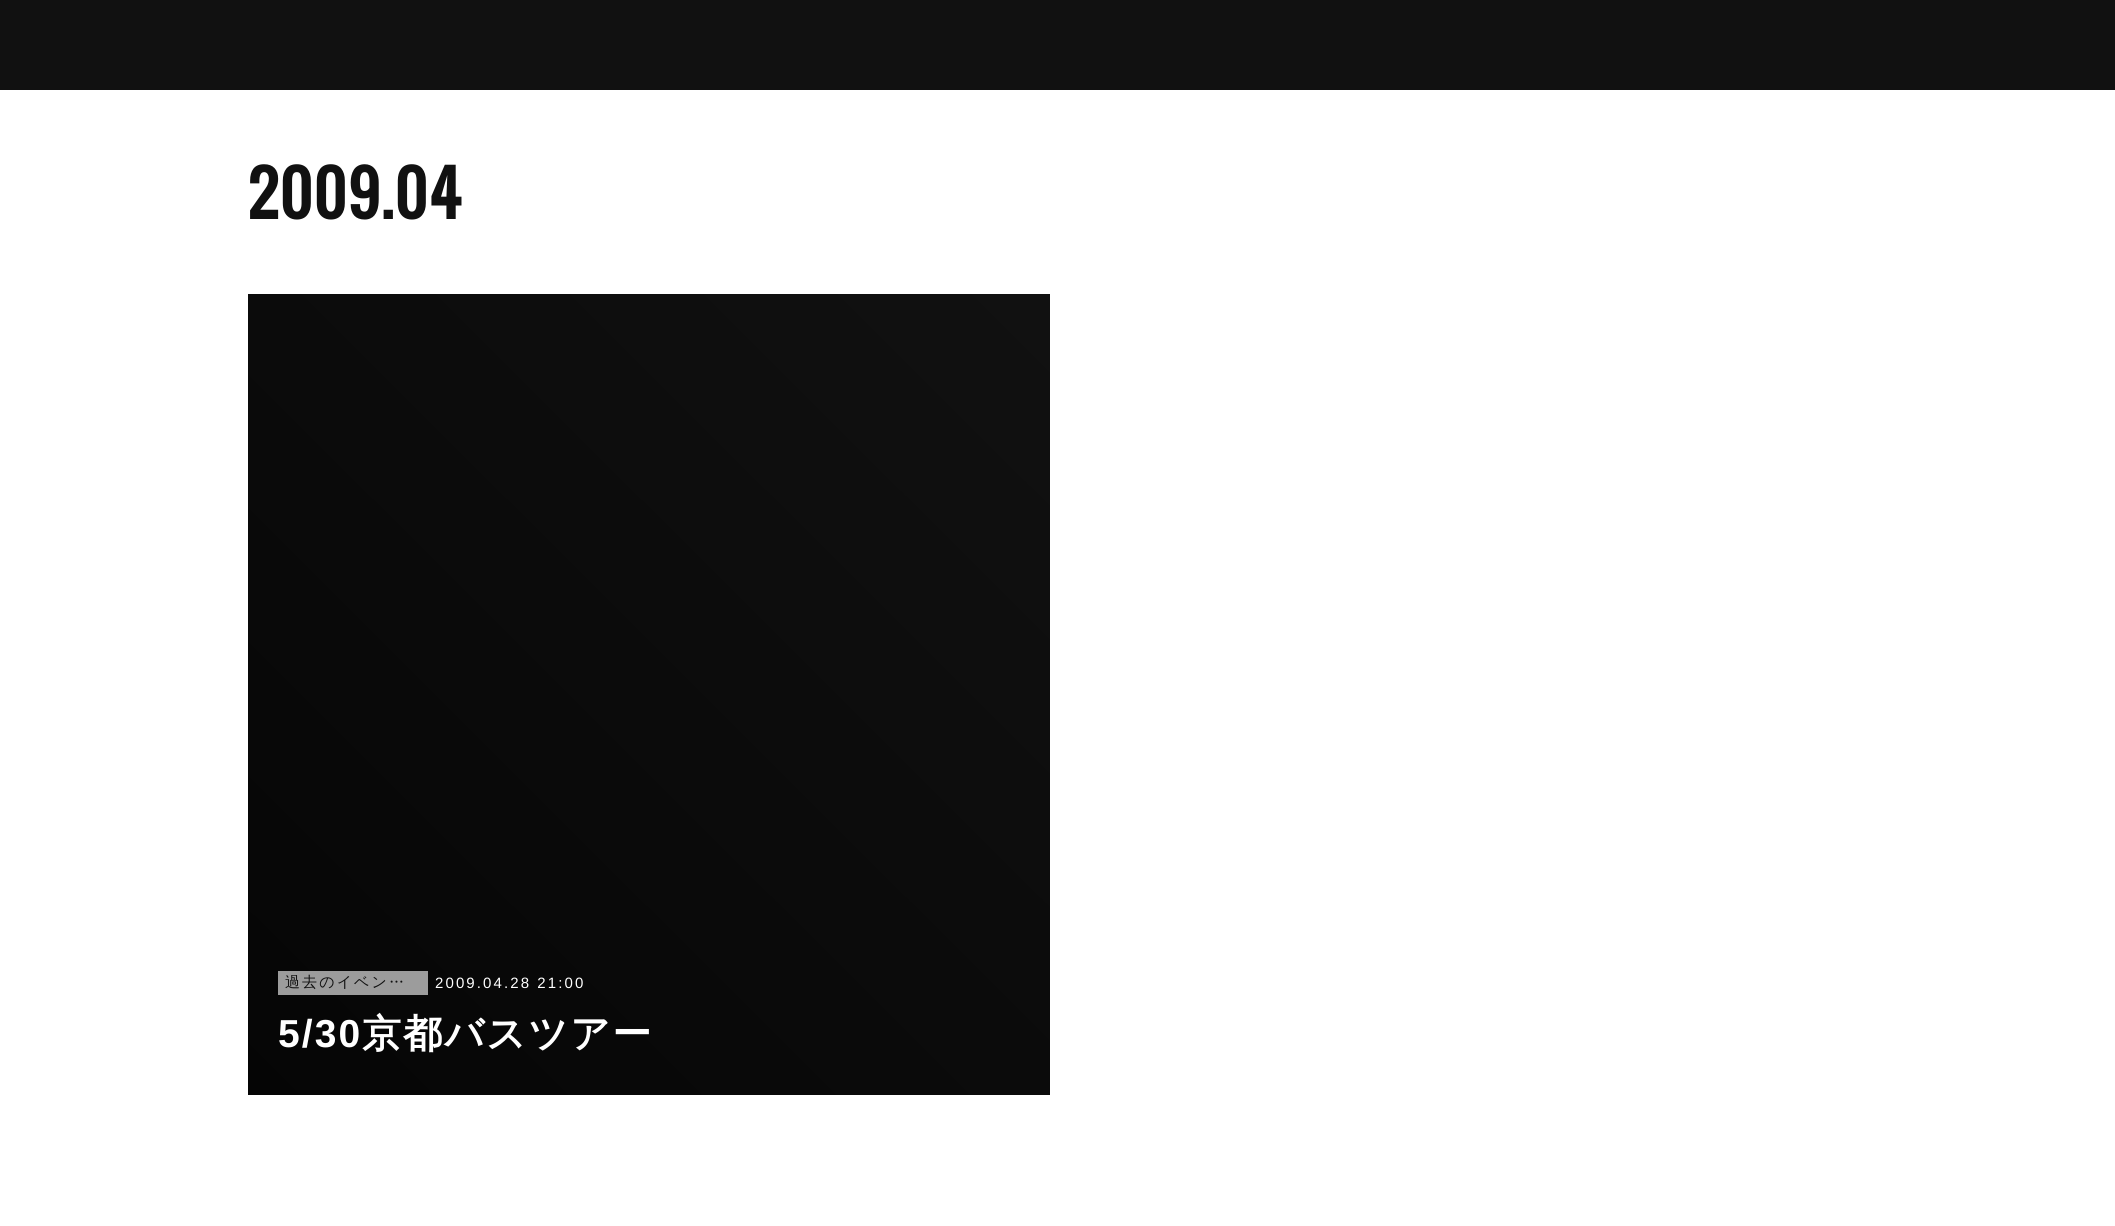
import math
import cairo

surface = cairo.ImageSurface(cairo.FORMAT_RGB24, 2115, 1226)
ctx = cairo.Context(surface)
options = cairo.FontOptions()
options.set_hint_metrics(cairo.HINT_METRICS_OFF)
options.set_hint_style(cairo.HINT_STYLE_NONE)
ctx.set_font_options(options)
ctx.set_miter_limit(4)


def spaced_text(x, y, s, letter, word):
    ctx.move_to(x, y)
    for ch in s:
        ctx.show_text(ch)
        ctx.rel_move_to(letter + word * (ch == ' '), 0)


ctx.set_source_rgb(1, 1, 1)
ctx.paint()
ctx.set_source_rgb(0.067, 0.067, 0.067)
ctx.rectangle(0, 0, 2115, 90)
ctx.fill()
ctx.select_font_face("Oswald", cairo.FONT_SLANT_NORMAL, cairo.FONT_WEIGHT_BOLD)
ctx.set_font_size(60)
spaced_text(248, 219, "2009.04", 2.1, 0)
gradient = cairo.LinearGradient(1049, 293, 248, 1096)
gradient.add_color_stop_rgba(0, 0.067, 0.067, 0.067, 1)
gradient.add_color_stop_rgba(1, 0.02, 0.02, 0.02, 1)
ctx.set_source(gradient)
ctx.rectangle(248, 294, 802, 801)
ctx.fill()
ctx.set_source_rgb(0.612, 0.612, 0.612)
ctx.rectangle(278, 971, 150, 24)
ctx.fill()
ctx.select_font_face("WenQuanYi Zen Hei Medium")
ctx.set_font_size(15)
ctx.set_source_rgb(0.067, 0.067, 0.067)
spaced_text(285, 987, "過去のイベン…", 2.1, 0)
ctx.select_font_face("Liberation Sans")
ctx.set_source_rgb(1, 1, 1)
spaced_text(435, 988, "2009.04.28 21:00", 2.1, 0)
ctx.select_font_face("Liberation Sans", cairo.FONT_SLANT_NORMAL, cairo.FONT_WEIGHT_BOLD)
ctx.set_font_size(39)
spaced_text(278, 1047, "5/30", 2.1, 0)
ctx.select_font_face("WenQuanYi Zen Hei", cairo.FONT_SLANT_NORMAL, cairo.FONT_WEIGHT_BOLD)
spaced_text(362, 1047, "京都バスツアー", 2.1, 0)
surface.write_to_png("page.png")
